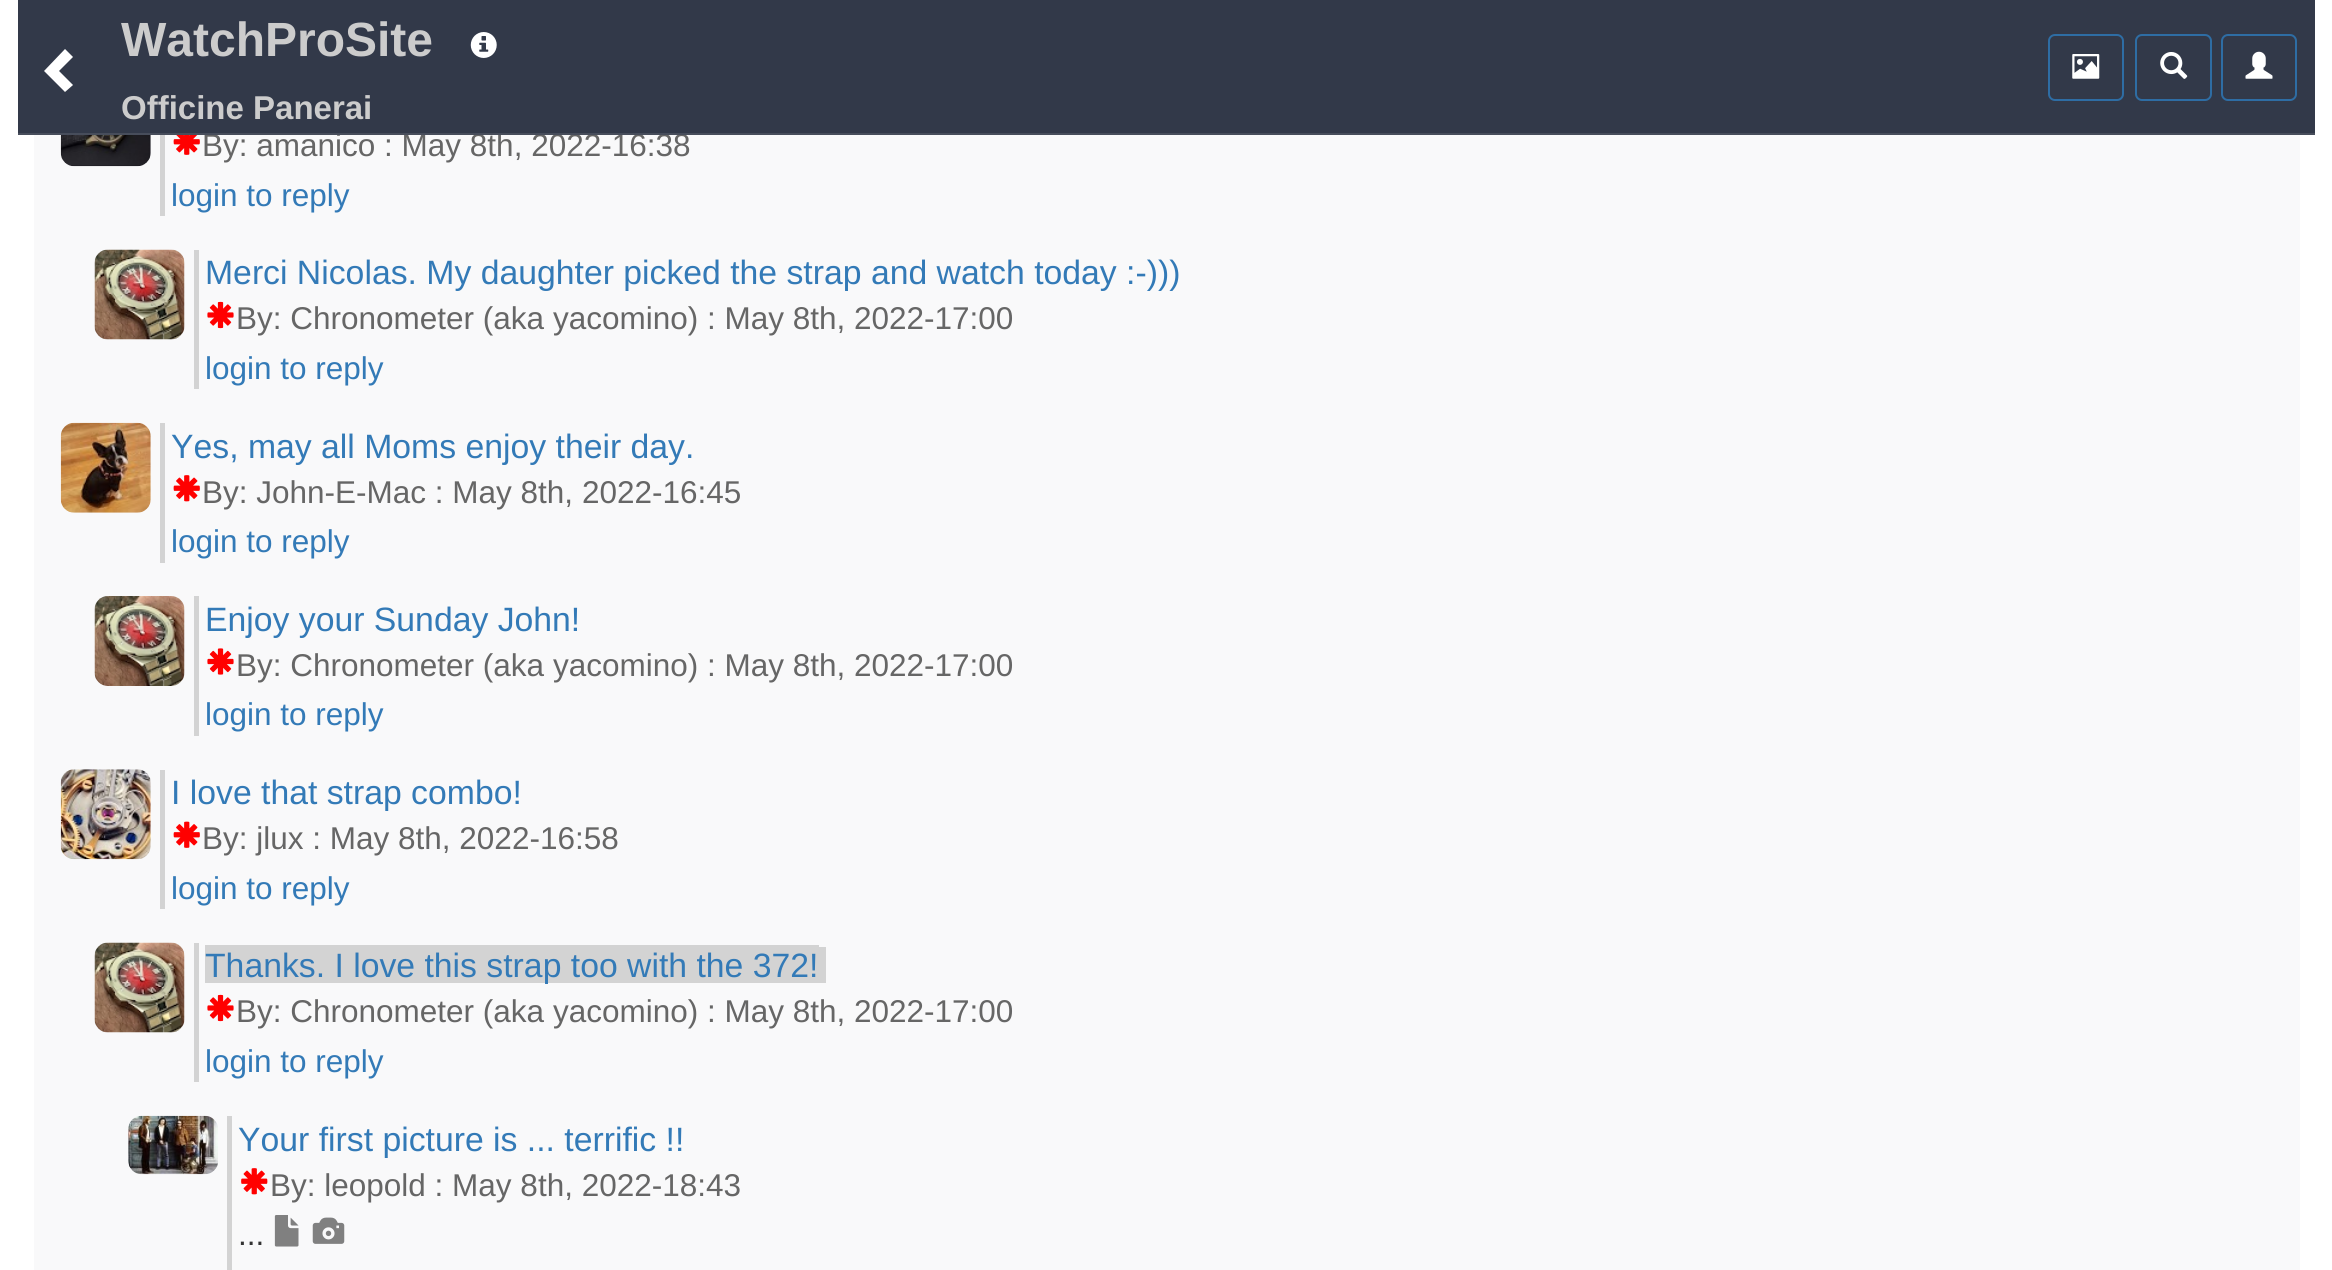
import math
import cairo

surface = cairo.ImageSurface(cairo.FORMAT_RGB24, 2332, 1270)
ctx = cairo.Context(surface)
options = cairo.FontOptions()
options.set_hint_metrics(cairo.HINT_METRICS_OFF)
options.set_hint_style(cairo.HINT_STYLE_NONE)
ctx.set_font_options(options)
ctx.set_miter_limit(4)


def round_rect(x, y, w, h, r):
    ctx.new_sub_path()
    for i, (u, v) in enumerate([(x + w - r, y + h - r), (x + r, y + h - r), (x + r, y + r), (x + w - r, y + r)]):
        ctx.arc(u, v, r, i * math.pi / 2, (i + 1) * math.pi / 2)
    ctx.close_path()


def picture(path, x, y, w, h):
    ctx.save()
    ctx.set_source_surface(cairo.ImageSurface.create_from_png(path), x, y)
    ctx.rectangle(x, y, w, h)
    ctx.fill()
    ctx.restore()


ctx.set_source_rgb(1, 1, 1)
ctx.paint()
ctx.set_source_rgb(0.196, 0.224, 0.286)
ctx.rectangle(18, 0, 2297, 133)
ctx.fill()
ctx.set_source_rgb(0.973, 0.976, 0.98)
ctx.rectangle(34, 135, 2266, 1135)
ctx.fill()
ctx.select_font_face("Liberation Sans")
ctx.set_font_size(31.5)
ctx.set_source_rgb(0.4, 0.4, 0.4)
ctx.move_to(202, 156)
ctx.show_text("By: amanico : May 8th, 2022-16:38")
ctx.set_source_rgb(0.278, 0.302, 0.357)
ctx.rectangle(18, 133, 2297, 2)
ctx.fill()
ctx.set_source_rgb(1, 1, 1)
ctx.new_path()
ctx.move_to(73, 57)
ctx.line_to(59, 71)
ctx.line_to(73, 85)
ctx.line_to(65, 92)
ctx.line_to(44, 71)
ctx.line_to(65, 49)
ctx.close_path()
ctx.fill()
ctx.select_font_face("Liberation Sans", cairo.FONT_SLANT_NORMAL, cairo.FONT_WEIGHT_BOLD)
ctx.set_font_size(48)
ctx.set_source_rgb(0.8, 0.8, 0.8)
ctx.move_to(121, 56)
ctx.show_text("WatchProSite")
picture("img1.png", 470, 32, 27, 26)
ctx.set_font_size(33)
ctx.move_to(121, 119)
ctx.show_text("Officine Panerai")
round_rect(2049, 35, 74, 65, 6)
ctx.set_source_rgb(0.18, 0.427, 0.643)
ctx.stroke()
picture("img2.png", 2072, 54, 28, 25)
round_rect(2136, 35, 75, 65, 6)
ctx.stroke()
picture("img3.png", 2160, 52, 28, 27)
round_rect(2222, 35, 74, 65, 6)
ctx.stroke()
picture("img4.png", 2245, 51, 28, 28)
picture("img5.png", 60, 135, 91, 32)
ctx.set_source_rgb(0.827, 0.827, 0.827)
ctx.rectangle(160, 135, 5, 81)
ctx.fill()
picture("img6.png", 173, 135, 27, 20)
ctx.select_font_face("Liberation Sans")
ctx.set_font_size(31.5)
ctx.set_source_rgb(0.2, 0.478, 0.718)
ctx.move_to(171, 206)
ctx.show_text("login to reply")
picture("img7.png", 94, 249, 91, 91)
ctx.set_source_rgb(0.827, 0.827, 0.827)
ctx.rectangle(194, 250, 5, 139)
ctx.fill()
ctx.set_font_size(33.75)
ctx.set_source_rgb(0.2, 0.478, 0.718)
ctx.move_to(205, 284)
ctx.show_text("Merci Nicolas. My daughter picked the strap and watch today :-)))")
picture("img8.png", 207, 301, 27, 28)
ctx.set_font_size(31.5)
ctx.set_source_rgb(0.4, 0.4, 0.4)
ctx.move_to(236, 329)
ctx.show_text("By: Chronometer (aka yacomino) : May 8th, 2022-17:00")
ctx.set_source_rgb(0.2, 0.478, 0.718)
ctx.move_to(205, 379)
ctx.show_text("login to reply")
picture("img9.png", 60, 422, 91, 91)
ctx.set_source_rgb(0.827, 0.827, 0.827)
ctx.rectangle(160, 423, 5, 140)
ctx.fill()
ctx.set_font_size(33.75)
ctx.set_source_rgb(0.2, 0.478, 0.718)
ctx.move_to(171, 458)
ctx.show_text("Yes, may all Moms enjoy their day.")
picture("img10.png", 173, 475, 27, 27)
ctx.set_font_size(31.5)
ctx.set_source_rgb(0.4, 0.4, 0.4)
ctx.move_to(202, 503)
ctx.show_text("By: John-E-Mac : May 8th, 2022-16:45")
ctx.set_source_rgb(0.2, 0.478, 0.718)
ctx.move_to(171, 552)
ctx.show_text("login to reply")
picture("img11.png", 94, 596, 91, 90)
ctx.set_source_rgb(0.827, 0.827, 0.827)
ctx.rectangle(194, 596, 5, 140)
ctx.fill()
ctx.set_font_size(33.75)
ctx.set_source_rgb(0.2, 0.478, 0.718)
ctx.move_to(205, 631)
ctx.show_text("Enjoy your Sunday John!")
picture("img12.png", 207, 648, 27, 27)
ctx.set_font_size(31.5)
ctx.set_source_rgb(0.4, 0.4, 0.4)
ctx.move_to(236, 676)
ctx.show_text("By: Chronometer (aka yacomino) : May 8th, 2022-17:00")
ctx.set_source_rgb(0.2, 0.478, 0.718)
ctx.move_to(205, 725)
ctx.show_text("login to reply")
picture("img13.png", 60, 769, 91, 91)
ctx.set_source_rgb(0.827, 0.827, 0.827)
ctx.rectangle(160, 770, 5, 139)
ctx.fill()
ctx.set_font_size(33.75)
ctx.set_source_rgb(0.2, 0.478, 0.718)
ctx.move_to(171, 804)
ctx.show_text("I love that strap combo!")
picture("img14.png", 173, 821, 27, 27)
ctx.set_font_size(31.5)
ctx.set_source_rgb(0.4, 0.4, 0.4)
ctx.move_to(202, 849)
ctx.show_text("By: jlux : May 8th, 2022-16:58")
ctx.set_source_rgb(0.2, 0.478, 0.718)
ctx.move_to(171, 899)
ctx.show_text("login to reply")
picture("img7.png", 94, 942, 91, 91)
ctx.set_source_rgb(0.827, 0.827, 0.827)
ctx.rectangle(194, 943, 5, 139)
ctx.fill()
ctx.rectangle(205, 945, 614, 38)
ctx.fill()
ctx.rectangle(819, 947, 7, 36)
ctx.fill()
ctx.set_font_size(33.75)
ctx.set_source_rgb(0.2, 0.478, 0.718)
ctx.move_to(205, 977)
ctx.show_text("Thanks. I love this strap too with the 372!")
picture("img8.png", 207, 994, 27, 28)
ctx.set_font_size(31.5)
ctx.set_source_rgb(0.4, 0.4, 0.4)
ctx.move_to(236, 1022)
ctx.show_text("By: Chronometer (aka yacomino) : May 8th, 2022-17:00")
ctx.set_source_rgb(0.2, 0.478, 0.718)
ctx.move_to(205, 1072)
ctx.show_text("login to reply")
picture("img15.png", 128, 1115, 90, 60)
ctx.set_source_rgb(0.827, 0.827, 0.827)
ctx.rectangle(227, 1116, 5, 154)
ctx.fill()
ctx.set_font_size(33.75)
ctx.set_source_rgb(0.2, 0.478, 0.718)
ctx.move_to(238, 1151)
ctx.show_text("Your first picture is ... terrific !!")
picture("img16.png", 241, 1168, 27, 27)
ctx.set_font_size(31.5)
ctx.set_source_rgb(0.4, 0.4, 0.4)
ctx.move_to(270, 1196)
ctx.show_text("By: leopold : May 8th, 2022-18:43")
ctx.set_source_rgb(0.2, 0.2, 0.2)
ctx.move_to(238, 1245)
ctx.show_text("...")
picture("img17.png", 274, 1215, 25, 32)
picture("img18.png", 312, 1217, 33, 27)
surface.write_to_png("page.png")
